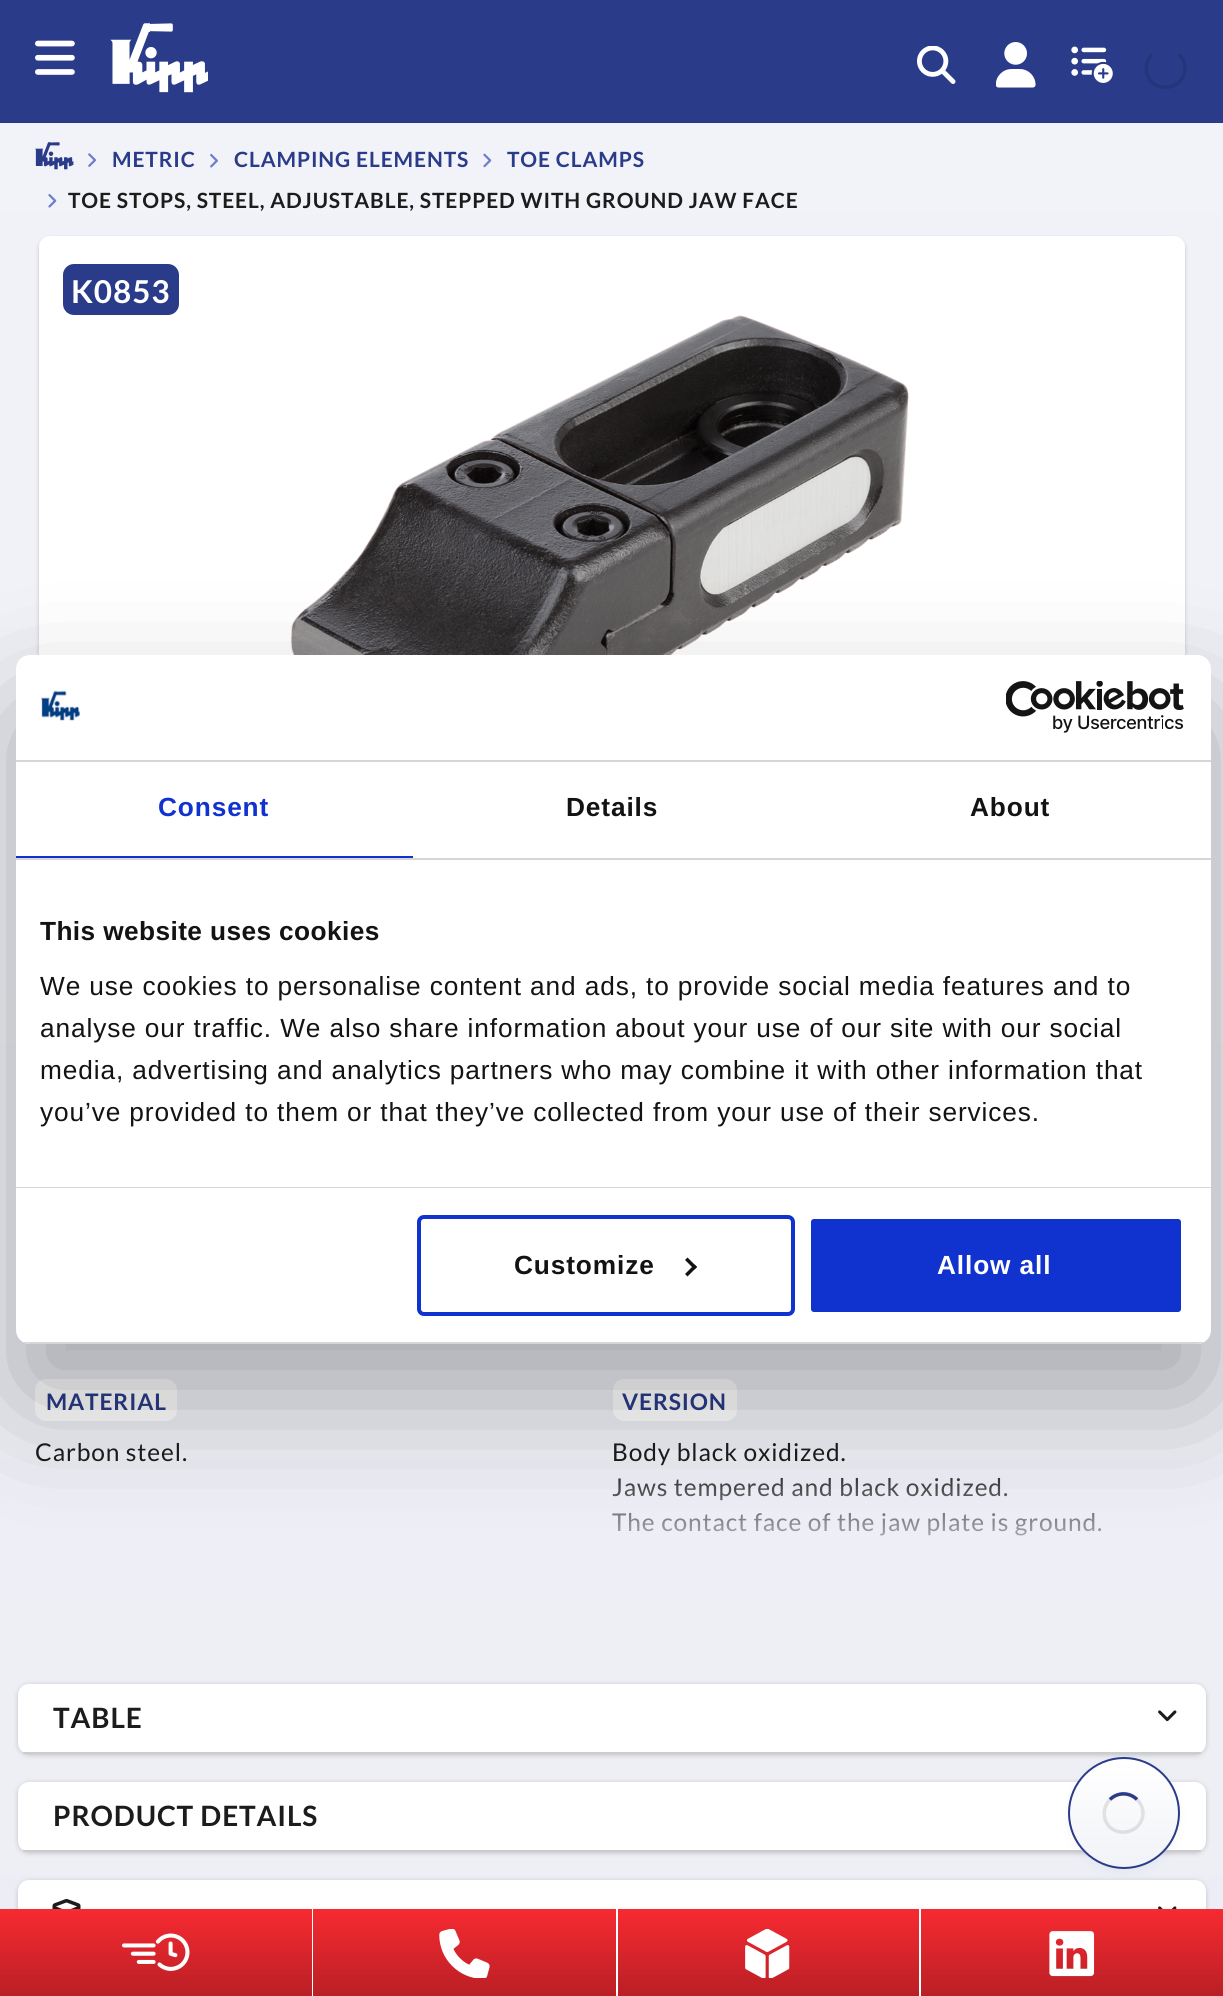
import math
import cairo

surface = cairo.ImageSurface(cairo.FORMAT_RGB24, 1223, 1996)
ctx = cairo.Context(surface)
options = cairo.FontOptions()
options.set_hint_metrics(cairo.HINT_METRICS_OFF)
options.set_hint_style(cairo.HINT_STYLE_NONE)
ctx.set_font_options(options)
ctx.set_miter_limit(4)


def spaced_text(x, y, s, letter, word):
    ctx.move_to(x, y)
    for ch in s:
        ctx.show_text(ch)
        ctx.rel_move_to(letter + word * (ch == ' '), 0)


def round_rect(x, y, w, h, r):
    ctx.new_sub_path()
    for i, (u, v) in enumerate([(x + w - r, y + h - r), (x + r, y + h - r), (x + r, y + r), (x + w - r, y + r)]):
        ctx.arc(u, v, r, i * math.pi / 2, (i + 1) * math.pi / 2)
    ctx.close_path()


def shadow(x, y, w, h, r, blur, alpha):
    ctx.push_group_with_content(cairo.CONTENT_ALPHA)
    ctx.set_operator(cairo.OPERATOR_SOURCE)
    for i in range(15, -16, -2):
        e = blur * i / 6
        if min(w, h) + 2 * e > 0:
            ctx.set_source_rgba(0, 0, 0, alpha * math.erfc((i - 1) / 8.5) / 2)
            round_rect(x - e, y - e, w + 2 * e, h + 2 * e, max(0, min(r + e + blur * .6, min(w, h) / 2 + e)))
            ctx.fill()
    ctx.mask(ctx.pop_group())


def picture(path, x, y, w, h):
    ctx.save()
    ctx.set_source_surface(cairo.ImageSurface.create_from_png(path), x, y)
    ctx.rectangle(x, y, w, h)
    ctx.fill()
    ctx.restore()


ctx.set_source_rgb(1, 1, 1)
ctx.paint()
gradient = cairo.LinearGradient(612, 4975, 612, 0)
gradient.add_color_stop_rgba(0, 0.894, 0.906, 0.941, 1)
gradient.add_color_stop_rgba(1, 0.949, 0.953, 0.973, 1)
ctx.set_source(gradient)
ctx.rectangle(0, 123, 1223, 1786)
ctx.fill()
ctx.set_source_rgb(0.161, 0.231, 0.537)
ctx.rectangle(0, 0, 1223, 123)
ctx.fill()
picture("img1.png", 35, 40, 40, 35)
picture("img2.png", 110, 23, 98, 70)
picture("img3.png", 917, 46, 39, 38)
picture("img4.png", 996, 42, 40, 46)
picture("img5.png", 1071, 46, 42, 37)
ctx.new_path()
ctx.move_to(1179, 54.5)
ctx.curve_to(1182.5, 58, 1185, 63, 1185, 68)
ctx.curve_to(1184.5, 91.5, 1151, 94.5, 1146.5, 72)
ctx.curve_to(1145.5, 66, 1147.5, 59, 1152, 54.5)
ctx.set_source_rgb(0.145, 0.208, 0.482)
ctx.set_line_width(3.5)
ctx.stroke()
picture("img6.png", 35, 142, 39, 28)
picture("img7.png", 88, 153, 8, 14)
ctx.select_font_face("Lato", cairo.FONT_SLANT_NORMAL, cairo.FONT_WEIGHT_BOLD)
ctx.set_font_size(21)
ctx.set_source_rgb(0.161, 0.231, 0.537)
spaced_text(112, 167, "METRIC", 0.88, 0)
picture("img8.png", 210, 153, 8, 15)
spaced_text(234, 167, "CLAMPING ELEMENTS", 0.88, 0)
picture("img9.png", 483, 153, 9, 15)
spaced_text(507, 167, "TOE CLAMPS", 0.88, 0)
picture("img10.png", 48, 194, 9, 14)
ctx.set_source_rgb(0.11, 0.11, 0.11)
spaced_text(68, 208, "TOE STOPS, STEEL, ADJUSTABLE, STEPPED WITH GROUND JAW FACE", 0.88, 0)
ctx.set_source_rgb(0, 0, 0)
shadow(39, 238, 1146, 599, 11, 2, 0.2)
ctx.set_source_rgb(1, 1, 1)
round_rect(39, 236, 1146, 599, 11)
ctx.fill()
picture("img11.png", 290, 315, 619, 340)
ctx.set_source_rgb(0.161, 0.231, 0.537)
round_rect(63, 264, 116, 51, 11)
ctx.fill()
ctx.set_font_size(31.5)
ctx.set_source_rgb(1, 1, 1)
spaced_text(71, 303, "K0853", 0.88, 0)
round_rect(35, 1379, 142, 42, 11)
ctx.fill()
ctx.set_font_size(22.75)
ctx.set_source_rgb(0.161, 0.231, 0.537)
spaced_text(46, 1410, "MATERIAL", 0.88, 0)
ctx.select_font_face("Lato")
ctx.set_font_size(24.5)
gradient = cairo.LinearGradient(323, 1435, 323, 1575)
gradient.add_color_stop_rgba(0, 0.11, 0.11, 0.11, 1)
gradient.add_color_stop_rgba(0.2, 0.11, 0.11, 0.11, 1)
gradient.add_color_stop_rgba(1, 0.933, 0.937, 0.965, 1)
ctx.set_source(gradient)
spaced_text(35, 1461, "Carbon steel.", 0.88, 0)
ctx.set_source_rgb(1, 1, 1)
round_rect(613, 1379, 124, 42, 11)
ctx.fill()
ctx.select_font_face("Lato", cairo.FONT_SLANT_NORMAL, cairo.FONT_WEIGHT_BOLD)
ctx.set_font_size(22.75)
ctx.set_source_rgb(0.161, 0.231, 0.537)
spaced_text(622, 1410, "VERSION", 0.88, 0)
ctx.select_font_face("Lato")
ctx.set_font_size(24.5)
gradient = cairo.LinearGradient(900, 1435, 900, 1575)
gradient.add_color_stop_rgba(0, 0.11, 0.11, 0.11, 1)
gradient.add_color_stop_rgba(0.2, 0.11, 0.11, 0.11, 1)
gradient.add_color_stop_rgba(1, 0.933, 0.937, 0.965, 1)
ctx.set_source(gradient)
spaced_text(612, 1461, "Body black oxidized.", 0.88, 0)
spaced_text(612, 1496, "Jaws tempered and black oxidized.", 0.88, 0)
spaced_text(612, 1531, "The contact face of the jaw plate is ground.", 0.88, 0)
ctx.set_source_rgb(0, 0, 0)
shadow(18, 1685, 1188, 70, 11, 2.5, 0.2)
ctx.set_source_rgb(1, 1, 1)
round_rect(18, 1684, 1188, 70, 11)
ctx.fill()
ctx.set_source_rgb(0.8, 0.8, 0.8)
ctx.rectangle(23, 1752, 1178, 2)
ctx.fill()
ctx.select_font_face("Lato", cairo.FONT_SLANT_NORMAL, cairo.FONT_WEIGHT_BOLD)
ctx.set_font_size(28)
ctx.set_source_rgb(0.11, 0.11, 0.11)
spaced_text(53, 1728, "TABLE", 0.88, 0)
picture("img12.png", 1158, 1710, 19, 12)
ctx.set_source_rgb(0, 0, 0)
shadow(18, 1783, 1188, 70, 11, 2.5, 0.2)
ctx.set_source_rgb(1, 1, 1)
round_rect(18, 1782, 1188, 70, 11)
ctx.fill()
ctx.set_source_rgb(0.8, 0.8, 0.8)
ctx.rectangle(23, 1850, 1178, 2)
ctx.fill()
ctx.set_source_rgb(0.11, 0.11, 0.11)
spaced_text(53, 1826, "PRODUCT DETAILS", 0.88, 0)
ctx.set_source_rgb(0, 0, 0)
shadow(18, 1881, 1188, 70, 11, 2.5, 0.2)
ctx.set_source_rgb(1, 1, 1)
round_rect(18, 1880, 1188, 70, 11)
ctx.fill()
picture("img13.png", 52, 1898, 29, 11)
picture("img14.png", 1158, 1906, 19, 3)
ctx.set_source_rgb(0.302, 0.373, 0.502)
shadow(1068, 1761, 112, 112, 56, 4.5, 0.06)
ctx.save()
round_rect(1068, 1757, 112, 112, 56)
ctx.clip()
gradient = cairo.LinearGradient(1124, 1867, 1124, 1759)
gradient.add_color_stop_rgba(0, 0.949, 0.953, 0.973, 1)
gradient.add_color_stop_rgba(1, 1, 1, 1, 1)
ctx.set_source(gradient)
ctx.rectangle(1068, 1759, 112, 108)
ctx.fill()
ctx.restore()
ctx.arc(1124, 1813, 55, 0, 2 * math.pi)
ctx.set_source_rgb(0.161, 0.231, 0.537)
ctx.set_line_width(2)
ctx.stroke()
ctx.new_path()
ctx.move_to(1110, 1799.5)
ctx.curve_to(1117.5, 1792, 1129.5, 1792, 1137, 1799.5)
ctx.set_line_width(3.5)
ctx.stroke()
ctx.new_path()
ctx.move_to(1137, 1799.5)
ctx.curve_to(1140.5, 1803, 1143, 1808, 1143, 1813)
ctx.curve_to(1142.5, 1836, 1109, 1839.5, 1104.5, 1817)
ctx.curve_to(1103.5, 1810.5, 1105.5, 1804, 1110, 1799.5)
ctx.set_source_rgba(0, 0, 0, 0.1)
ctx.stroke()
gradient = cairo.LinearGradient(156, 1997, 156, 1909)
gradient.add_color_stop_rgba(0, 0.722, 0.122, 0.145, 1)
gradient.add_color_stop_rgba(1, 0.969, 0.165, 0.192, 1)
ctx.set_source(gradient)
ctx.rectangle(0, 1909, 312, 87)
ctx.fill()
ctx.set_source_rgb(1, 1, 1)
ctx.rectangle(312, 1950, 1, 5)
ctx.fill()
picture("img15.png", 122, 1933, 68, 38)
gradient = cairo.LinearGradient(465, 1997, 465, 1909)
gradient.add_color_stop_rgba(0, 0.722, 0.122, 0.145, 1)
gradient.add_color_stop_rgba(1, 0.969, 0.165, 0.192, 1)
ctx.set_source(gradient)
ctx.rectangle(313, 1909, 303, 87)
ctx.fill()
ctx.set_source_rgb(1, 1, 1)
ctx.rectangle(616, 1950, 2, 5)
ctx.fill()
picture("img16.png", 439, 1929, 51, 49)
gradient = cairo.LinearGradient(768, 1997, 768, 1909)
gradient.add_color_stop_rgba(0, 0.722, 0.122, 0.145, 1)
gradient.add_color_stop_rgba(1, 0.969, 0.165, 0.192, 1)
ctx.set_source(gradient)
ctx.rectangle(618, 1909, 301, 87)
ctx.fill()
ctx.set_source_rgb(1, 1, 1)
ctx.rectangle(919, 1950, 2, 5)
ctx.fill()
picture("img17.png", 745, 1929, 45, 49)
gradient = cairo.LinearGradient(1072, 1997, 1072, 1909)
gradient.add_color_stop_rgba(0, 0.722, 0.122, 0.145, 1)
gradient.add_color_stop_rgba(1, 0.969, 0.165, 0.192, 1)
ctx.set_source(gradient)
ctx.rectangle(921, 1909, 302, 87)
ctx.fill()
picture("img18.png", 1049, 1931, 46, 46)
ctx.set_source_rgb(0, 0, 0)
shadow(16, 711, 1195, 689, 14, 59.5, 0.3)
ctx.set_source_rgb(1, 1, 1)
round_rect(16, 655, 1195, 689, 14)
ctx.fill()
ctx.set_source_rgb(0.839, 0.839, 0.839)
ctx.rectangle(16, 760, 1195, 2)
ctx.fill()
picture("img19.png", 41, 690, 39, 31)
picture("img20.png", 1006, 681, 178, 52)
ctx.rectangle(16, 858, 1195, 2)
ctx.fill()
ctx.set_source_rgb(0.063, 0.196, 0.812)
ctx.rectangle(16, 856, 397, 2)
ctx.fill()
ctx.select_font_face("Liberation Sans", cairo.FONT_SLANT_NORMAL, cairo.FONT_WEIGHT_BOLD)
ctx.set_font_size(26.25)
spaced_text(158, 816, "Consent", 0.88, 0)
ctx.set_source_rgb(0.078, 0.078, 0.078)
spaced_text(566, 816, "Details", 0.88, 0)
spaced_text(970, 816, "About", 0.88, 0)
ctx.set_source_rgb(0.839, 0.839, 0.839)
ctx.rectangle(16, 1187, 1195, 1)
ctx.fill()
ctx.set_source_rgb(0.078, 0.078, 0.078)
spaced_text(40, 940, "This website uses cookies", 0.4, 0)
ctx.select_font_face("Liberation Sans")
spaced_text(40, 995, "We use cookies to personalise content and ads, to provide social media features and to", 0.88, 0)
spaced_text(40, 1037, "analyse our traffic. We also share information about your use of our site with our social", 0.88, 0)
spaced_text(40, 1079, "media, advertising and analytics partners who may combine it with other information that", 0.88, 0)
spaced_text(40, 1121, "you’ve provided to them or that they’ve collected from your use of their services.", 0.88, 0)
ctx.save()
round_rect(16, 655, 1195, 689, 14)
ctx.clip()
ctx.set_source_rgb(0.839, 0.839, 0.839)
ctx.rectangle(16, 1342, 1195, 2)
ctx.fill()
ctx.restore()
round_rect(419, 1217, 374, 97, 5)
ctx.set_source_rgb(0.063, 0.196, 0.812)
ctx.set_line_width(4)
ctx.stroke()
ctx.select_font_face("Liberation Sans", cairo.FONT_SLANT_NORMAL, cairo.FONT_WEIGHT_BOLD)
ctx.set_source_rgb(0.078, 0.078, 0.078)
spaced_text(514, 1274, "Customize", 0.88, 0)
ctx.new_path()
ctx.move_to(687.5, 1257.5)
ctx.line_to(697, 1267)
ctx.line_to(694.5, 1269.5)
ctx.line_to(685, 1260)
ctx.close_path()
ctx.fill()
ctx.new_path()
ctx.move_to(694.5, 1264.5)
ctx.line_to(697, 1267)
ctx.line_to(687.5, 1276.5)
ctx.line_to(685, 1274)
ctx.close_path()
ctx.fill()
ctx.set_source_rgb(0.063, 0.196, 0.812)
round_rect(809, 1217, 374, 97, 5)
ctx.fill_preserve()
ctx.set_source_rgb(1, 1, 1)
ctx.stroke()
spaced_text(937, 1274, "Allow all", 0.88, 0)
surface.write_to_png("page.png")
